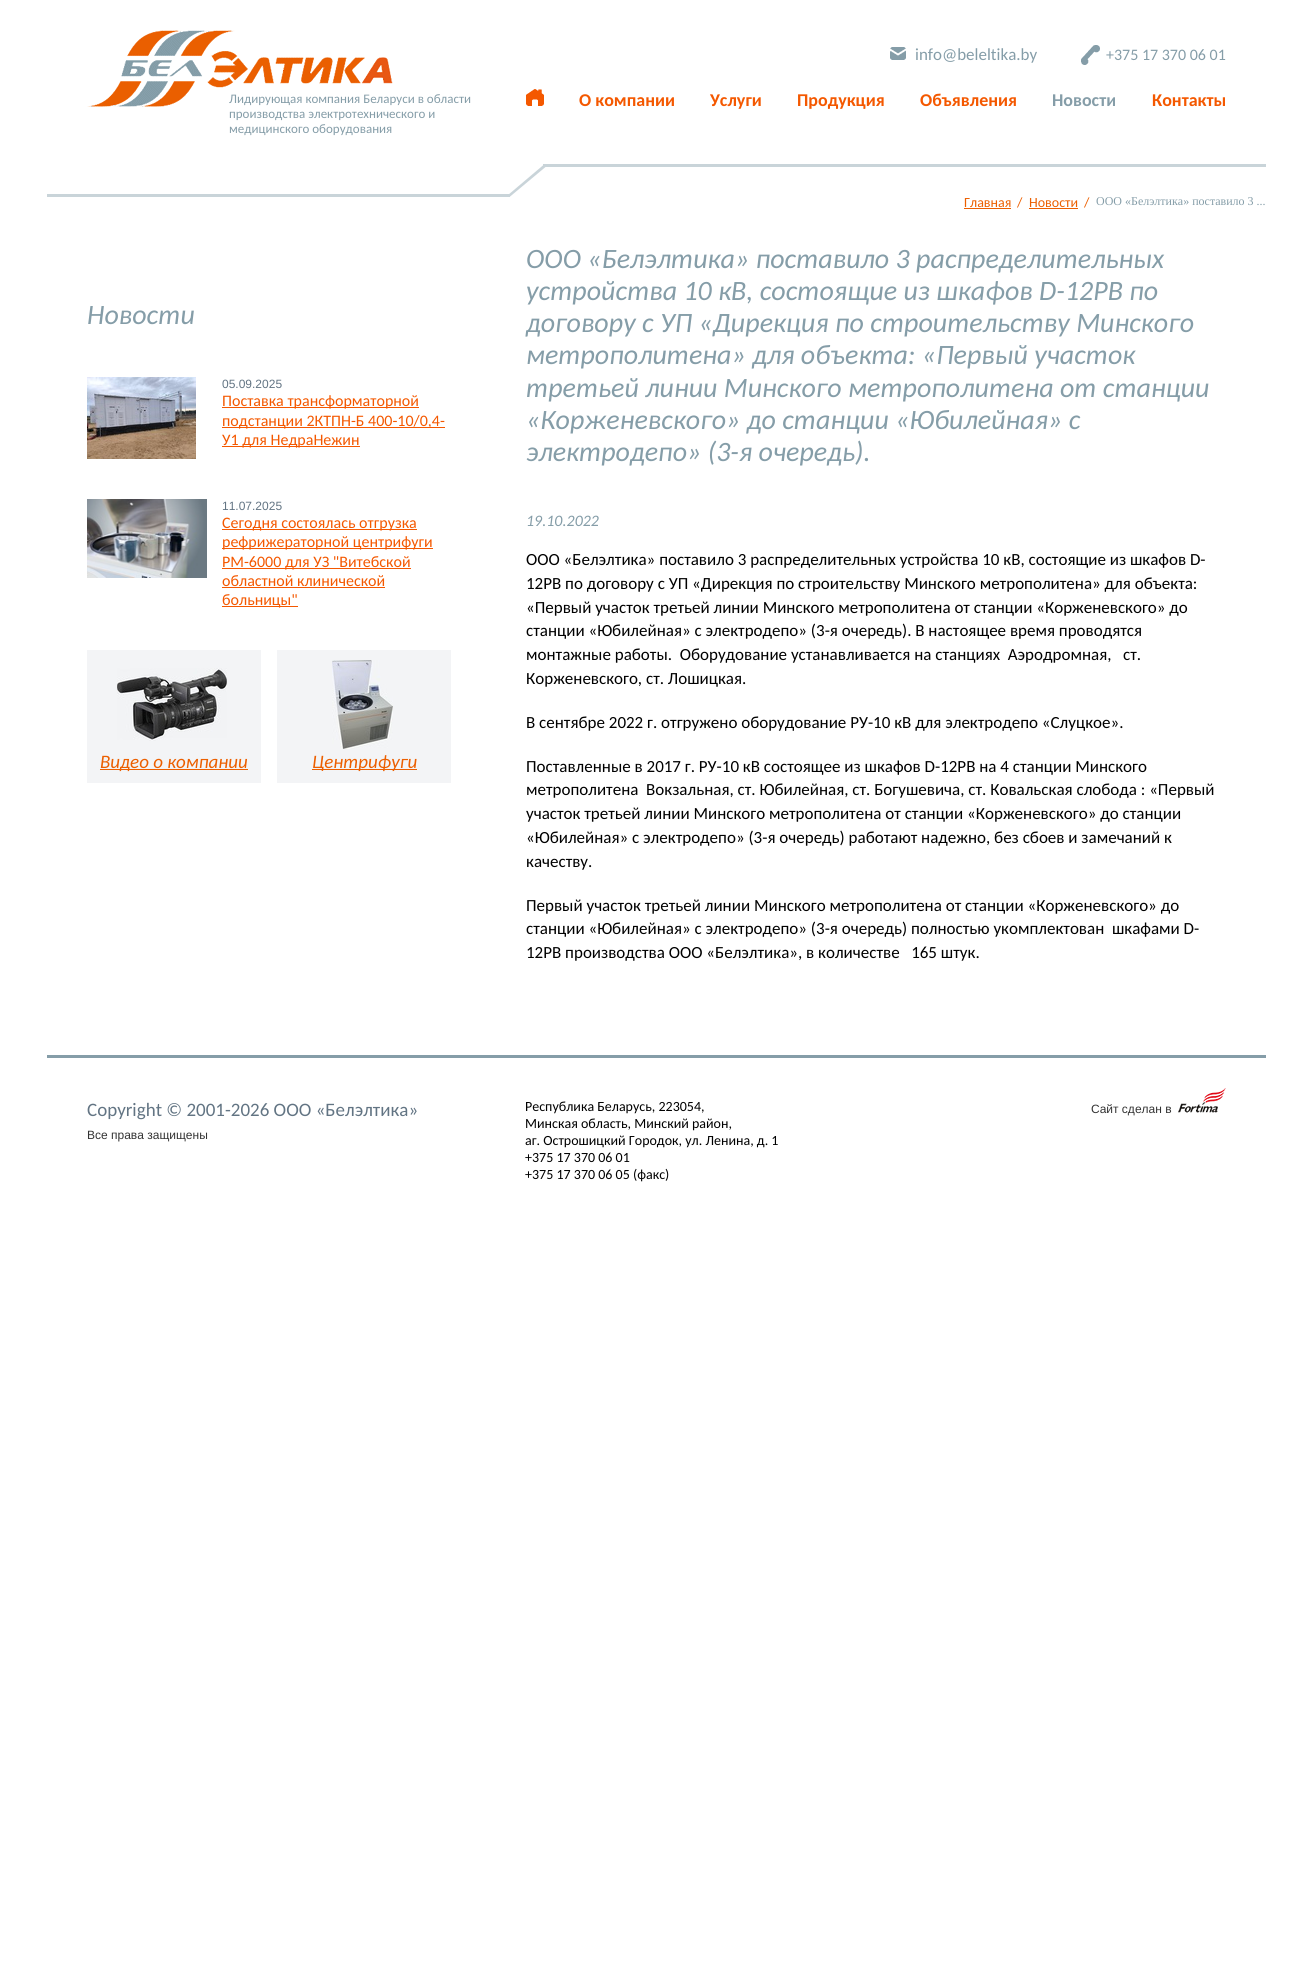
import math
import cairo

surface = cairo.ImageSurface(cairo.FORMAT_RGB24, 1313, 1961)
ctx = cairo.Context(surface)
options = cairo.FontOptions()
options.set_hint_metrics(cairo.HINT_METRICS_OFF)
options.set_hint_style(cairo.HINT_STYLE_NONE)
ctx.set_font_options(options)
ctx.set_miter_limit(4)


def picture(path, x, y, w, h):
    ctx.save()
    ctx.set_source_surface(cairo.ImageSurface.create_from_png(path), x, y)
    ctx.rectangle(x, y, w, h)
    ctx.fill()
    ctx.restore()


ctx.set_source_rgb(1, 1, 1)
ctx.paint()
picture("img1.png", 890, 47, 16, 13)
ctx.select_font_face("Carlito")
ctx.set_font_size(17)
ctx.set_source_rgb(0.522, 0.616, 0.659)
ctx.move_to(915, 60)
ctx.show_text("info@beleltika.by")
picture("img2.png", 1081, 45, 19, 20)
ctx.set_font_size(16)
ctx.move_to(1106, 60)
ctx.show_text("+375 17 370 06 01")
picture("img3.png", 87, 30, 306, 77)
ctx.set_font_size(13)
ctx.move_to(229, 103)
ctx.show_text("Лидирующая компания Беларуси в области")
ctx.move_to(229, 118)
ctx.show_text("производства электротехнического и")
ctx.move_to(229, 133)
ctx.show_text("медицинского оборудования")
picture("img4.png", 526, 89, 18, 17)
ctx.select_font_face("Carlito", cairo.FONT_SLANT_NORMAL, cairo.FONT_WEIGHT_BOLD)
ctx.set_font_size(18)
ctx.set_source_rgb(0.957, 0.345, 0)
ctx.move_to(579, 106)
ctx.show_text("О компании")
ctx.move_to(710, 106)
ctx.show_text("Услуги")
ctx.move_to(797, 106)
ctx.show_text("Продукция")
ctx.move_to(920, 106)
ctx.show_text("Объявления")
ctx.set_source_rgb(0.522, 0.616, 0.659)
ctx.move_to(1052, 106)
ctx.show_text("Новости")
ctx.set_source_rgb(0.957, 0.345, 0)
ctx.move_to(1152, 106)
ctx.show_text("Контакты")
ctx.set_source_rgb(0.788, 0.831, 0.851)
ctx.rectangle(47, 194, 463, 3)
ctx.fill()
ctx.rectangle(543, 164, 723, 3)
ctx.fill()
ctx.new_path()
ctx.move_to(508, 195)
ctx.line_to(544, 164.5)
ctx.line_to(545.5, 167)
ctx.line_to(509.5, 197)
ctx.close_path()
ctx.fill()
ctx.select_font_face("Carlito", cairo.FONT_SLANT_ITALIC)
ctx.set_font_size(28)
ctx.set_source_rgb(0.522, 0.616, 0.659)
ctx.move_to(87, 324)
ctx.show_text("Новости")
picture("img5.png", 87, 377, 109, 82)
ctx.select_font_face("Liberation Sans")
ctx.set_font_size(12)
ctx.set_source_rgb(0.384, 0.455, 0.514)
ctx.move_to(222, 388)
ctx.show_text("05.09.2025")
ctx.set_source_rgb(0.957, 0.345, 0)
ctx.rectangle(222, 407, 197, 1)
ctx.fill()
ctx.select_font_face("Carlito")
ctx.set_font_size(16)
ctx.move_to(222, 406)
ctx.show_text("Поставка трансформаторной")
ctx.rectangle(222, 427, 223, 1)
ctx.fill()
ctx.move_to(222, 426)
ctx.show_text("подстанции 2КТПН-Б 400-10/0,4-")
ctx.rectangle(222, 446, 138, 1)
ctx.fill()
ctx.move_to(222, 445)
ctx.show_text("У1 для НедраНежин")
picture("img6.png", 87, 499, 120, 79)
ctx.select_font_face("Liberation Sans")
ctx.set_font_size(12)
ctx.set_source_rgb(0.384, 0.455, 0.514)
ctx.move_to(222, 510)
ctx.show_text("11.07.2025")
ctx.set_source_rgb(0.957, 0.345, 0)
ctx.rectangle(222, 529, 195, 1)
ctx.fill()
ctx.select_font_face("Carlito")
ctx.set_font_size(16)
ctx.move_to(222, 528)
ctx.show_text("Сегодня состоялась отгрузка")
ctx.rectangle(222, 548, 211, 1)
ctx.fill()
ctx.move_to(222, 547)
ctx.show_text("рефрижераторной центрифуги")
ctx.rectangle(222, 568, 189, 1)
ctx.fill()
ctx.move_to(222, 567)
ctx.show_text("PM-6000 для УЗ \"Витебской")
ctx.move_to(222, 586)
ctx.show_text("областной клинической")
ctx.rectangle(222, 587, 163, 1)
ctx.fill()
ctx.rectangle(222, 606, 76, 1)
ctx.fill()
ctx.move_to(222, 605)
ctx.show_text("больницы\"")
ctx.set_source_rgb(0.953, 0.957, 0.961)
ctx.rectangle(87, 650, 174, 133)
ctx.fill()
picture("img7.png", 117, 668, 110, 73)
ctx.set_source_rgb(0.922, 0.373, 0)
ctx.rectangle(100, 769, 148, 1)
ctx.fill()
ctx.select_font_face("Carlito", cairo.FONT_SLANT_ITALIC)
ctx.set_font_size(19)
ctx.move_to(100, 768)
ctx.show_text("Видео о компании")
ctx.set_source_rgb(0.953, 0.957, 0.961)
ctx.rectangle(277, 650, 174, 133)
ctx.fill()
picture("img8.png", 332, 660, 61, 89)
ctx.set_source_rgb(0.922, 0.373, 0)
ctx.rectangle(312, 769, 105, 1)
ctx.fill()
ctx.move_to(312, 768)
ctx.show_text("Центрифуги")
ctx.select_font_face("Carlito")
ctx.set_font_size(14)
ctx.move_to(964, 207)
ctx.show_text("Главная")
ctx.rectangle(964, 208, 47, 1)
ctx.fill()
ctx.move_to(1017, 207)
ctx.show_text("/")
ctx.move_to(1029, 207)
ctx.show_text("Новости")
ctx.rectangle(1029, 208, 49, 1)
ctx.fill()
ctx.move_to(1084, 207)
ctx.show_text("/")
ctx.select_font_face("Liberation Serif")
ctx.set_font_size(12)
ctx.set_source_rgb(0.522, 0.616, 0.659)
ctx.move_to(1096, 205)
ctx.show_text("ООО «Белэлтика» поставило 3 ...")
ctx.select_font_face("Carlito", cairo.FONT_SLANT_ITALIC)
ctx.set_font_size(28)
ctx.move_to(526, 268)
ctx.show_text("ООО «Белэлтика» поставило 3 распределительных")
ctx.move_to(526, 300)
ctx.show_text("устройства 10 кВ, состоящие из шкафов D-12PB по")
ctx.move_to(526, 332)
ctx.show_text("договору с УП «Дирекция по строительству Минского")
ctx.move_to(526, 364)
ctx.show_text("метрополитена» для объекта: «Первый участок")
ctx.move_to(526, 397)
ctx.show_text("третьей линии Минского метрополитена от станции")
ctx.move_to(526, 429)
ctx.show_text("«Корженевского» до станции «Юбилейная» с")
ctx.move_to(526, 461)
ctx.show_text("электродепо» (3-я очередь).")
ctx.set_font_size(16)
ctx.move_to(526, 526)
ctx.show_text("19.10.2022")
ctx.select_font_face("Carlito")
ctx.set_font_size(17)
ctx.set_source_rgb(0, 0, 0)
ctx.move_to(526, 565)
ctx.show_text("ООО «Белэлтика» поставило 3 распределительных устройства 10 кВ, состоящие из шкафов D-")
ctx.move_to(526, 589)
ctx.show_text("12PB по договору с УП «Дирекция по строительству Минского метрополитена» для объекта:")
ctx.move_to(526, 613)
ctx.show_text("«Первый участок третьей линии Минского метрополитена от станции «Корженевского» до")
ctx.move_to(526, 636)
ctx.show_text("станции «Юбилейная» с электродепо» (3-я очередь). В настоящее время проводятся")
ctx.move_to(526, 660)
ctx.show_text("монтажные работы.  Оборудование устанавливается на станциях  Аэродромная,   ст.")
ctx.move_to(526, 684)
ctx.show_text("Корженевского, ст. Лошицкая.")
ctx.move_to(526, 728)
ctx.show_text("В сентябре 2022 г. отгружено оборудование РУ-10 кВ для электродепо «Слуцкое».")
ctx.move_to(526, 772)
ctx.show_text("Поставленные в 2017 г. РУ-10 кВ состоящее из шкафов D-12PB на 4 станции Минского")
ctx.move_to(526, 795)
ctx.show_text("метрополитена  Вокзальная, ст. Юбилейная, ст. Богушевича, ст. Ковальская слобода : «Первый")
ctx.move_to(526, 819)
ctx.show_text("участок третьей линии Минского метрополитена от станции «Корженевского» до станции")
ctx.move_to(526, 843)
ctx.show_text("«Юбилейная» с электродепо» (3-я очередь) работают надежно, без сбоев и замечаний к")
ctx.move_to(526, 867)
ctx.show_text("качеству.")
ctx.move_to(526, 911)
ctx.show_text("Первый участок третьей линии Минского метрополитена от станции «Корженевского» до")
ctx.move_to(526, 934)
ctx.show_text("станции «Юбилейная» с электродепо» (3-я очередь) полностью укомплектован  шкафами D-")
ctx.move_to(526, 958)
ctx.show_text("12PB производства ООО «Белэлтика», в количестве   165 штук.")
ctx.set_source_rgb(0.522, 0.616, 0.659)
ctx.rectangle(47, 1055, 1219, 3)
ctx.fill()
ctx.set_font_size(19)
ctx.set_source_rgb(0.384, 0.455, 0.514)
ctx.move_to(87, 1116)
ctx.show_text("Copyright © 2001-2026 ООО «Белэлтика»")
ctx.select_font_face("Liberation Sans")
ctx.set_font_size(12)
ctx.set_source_rgb(0.2, 0.2, 0.2)
ctx.move_to(87, 1139)
ctx.show_text("Все права защищены")
ctx.select_font_face("Carlito")
ctx.set_font_size(14)
ctx.set_source_rgb(0, 0, 0)
ctx.move_to(525, 1111)
ctx.show_text("Республика Беларусь, 223054,")
ctx.move_to(525, 1128)
ctx.show_text("Минская область, Минский район,")
ctx.move_to(525, 1145)
ctx.show_text("аг. Острошицкий Городок, ул. Ленина, д. 1")
ctx.move_to(525, 1162)
ctx.show_text("+375 17 370 06 01")
ctx.move_to(525, 1179)
ctx.show_text("+375 17 370 06 05 (факс)")
ctx.select_font_face("Liberation Sans")
ctx.set_font_size(12)
ctx.set_source_rgb(0.2, 0.2, 0.2)
ctx.move_to(1091, 1113)
ctx.show_text("Сайт сделан в")
picture("img9.png", 1178, 1088, 48, 25)
surface.write_to_png("page.png")
